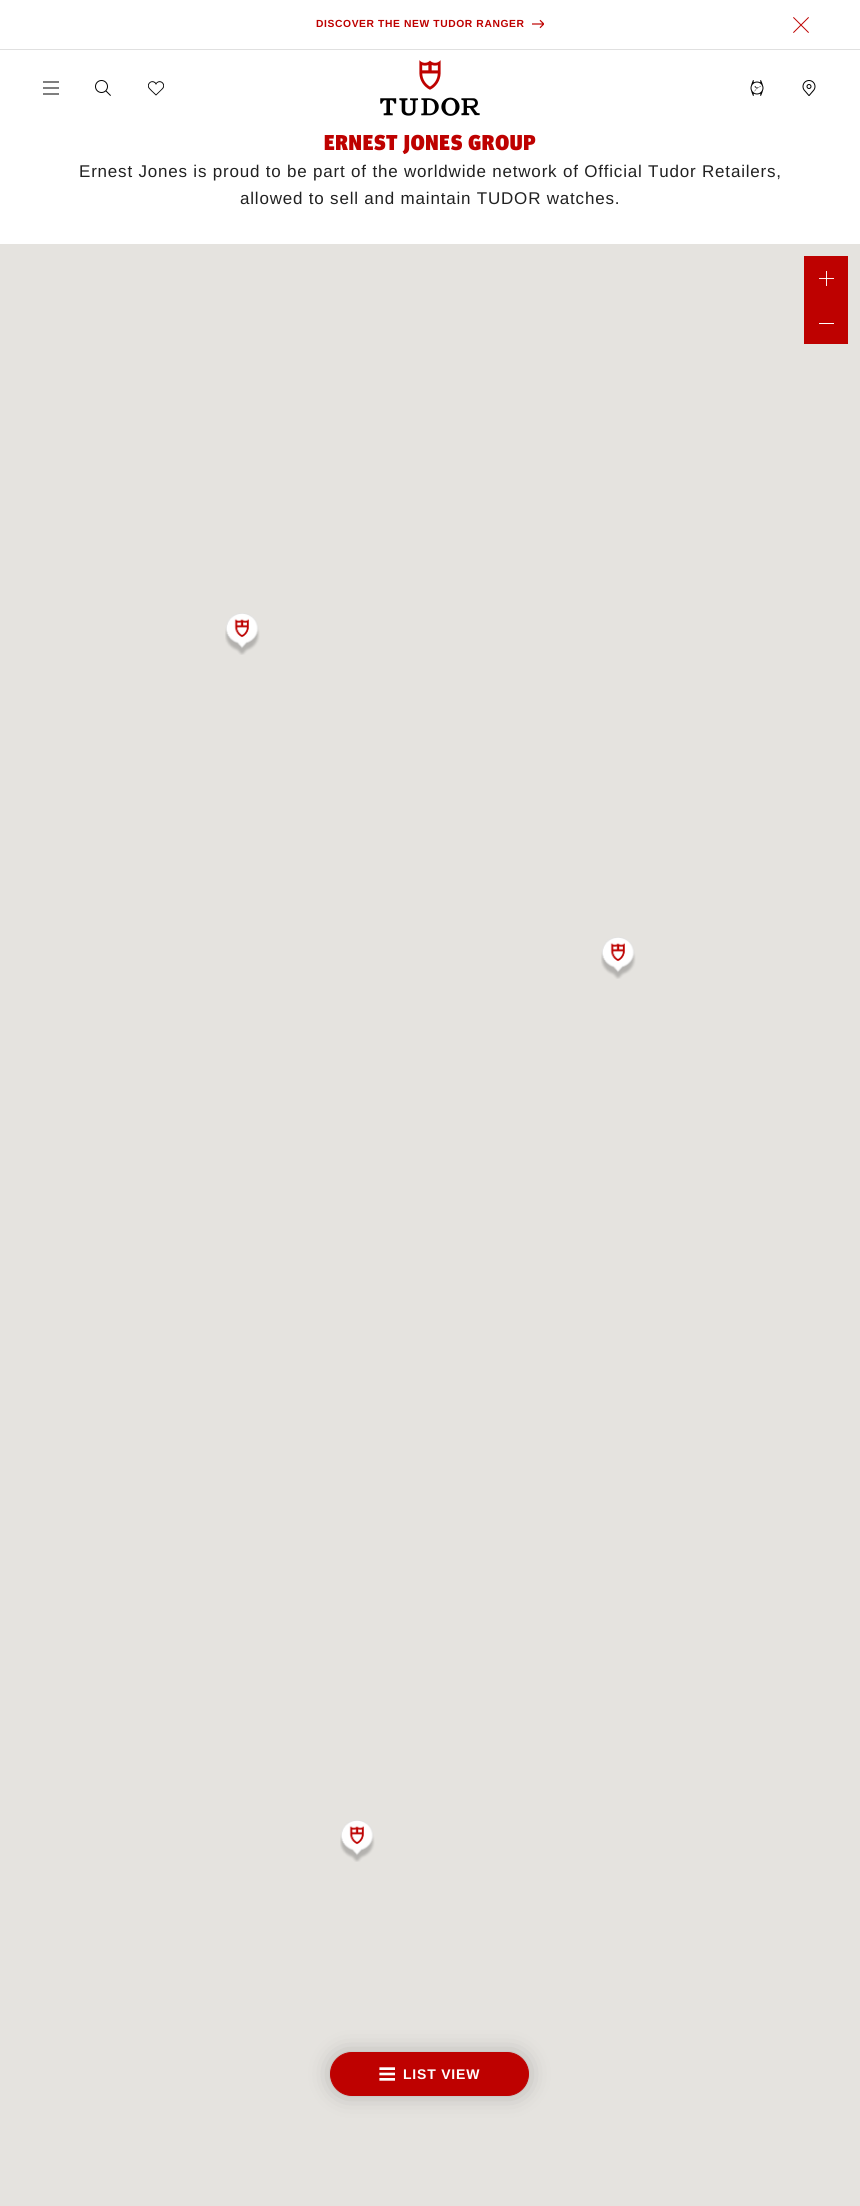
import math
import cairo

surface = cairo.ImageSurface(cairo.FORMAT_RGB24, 860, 2206)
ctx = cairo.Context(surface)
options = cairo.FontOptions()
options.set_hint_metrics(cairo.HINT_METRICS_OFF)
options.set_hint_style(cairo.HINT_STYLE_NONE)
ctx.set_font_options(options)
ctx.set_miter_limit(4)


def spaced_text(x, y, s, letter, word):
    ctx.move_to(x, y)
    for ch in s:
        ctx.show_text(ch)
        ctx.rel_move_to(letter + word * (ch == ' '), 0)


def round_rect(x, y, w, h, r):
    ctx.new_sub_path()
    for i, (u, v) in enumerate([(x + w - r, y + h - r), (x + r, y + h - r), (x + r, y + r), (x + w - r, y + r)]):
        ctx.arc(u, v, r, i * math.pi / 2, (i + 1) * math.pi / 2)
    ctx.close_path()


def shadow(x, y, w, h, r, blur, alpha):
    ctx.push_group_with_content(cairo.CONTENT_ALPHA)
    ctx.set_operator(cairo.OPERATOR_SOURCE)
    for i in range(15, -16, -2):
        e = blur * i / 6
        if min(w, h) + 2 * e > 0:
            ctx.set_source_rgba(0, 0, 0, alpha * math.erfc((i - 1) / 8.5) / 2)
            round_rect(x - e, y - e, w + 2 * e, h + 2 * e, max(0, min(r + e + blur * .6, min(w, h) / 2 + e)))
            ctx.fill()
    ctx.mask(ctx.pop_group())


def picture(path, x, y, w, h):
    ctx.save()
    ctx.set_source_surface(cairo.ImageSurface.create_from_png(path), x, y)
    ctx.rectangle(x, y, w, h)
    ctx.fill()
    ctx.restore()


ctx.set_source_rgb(1, 1, 1)
ctx.paint()
ctx.set_source_rgb(0.878, 0.878, 0.878)
ctx.rectangle(0, 49, 860, 1)
ctx.fill()
ctx.select_font_face("Liberation Sans", cairo.FONT_SLANT_NORMAL, cairo.FONT_WEIGHT_BOLD)
ctx.set_font_size(10.3)
ctx.set_source_rgb(0.745, 0.004, 0)
spaced_text(316, 27, "DISCOVER THE NEW TUDOR RANGER", 0.6, 0)
picture("img1.png", 532, 19, 12, 10)
picture("img2.png", 793, 17, 16, 16)
picture("img3.png", 380, 60, 100, 56)
picture("img4.png", 43, 81, 16, 14)
picture("img5.png", 95, 80, 16, 16)
picture("img6.png", 148, 81, 16, 15)
picture("img7.png", 750, 80, 14, 16)
picture("img8.png", 802, 80, 14, 16)
ctx.select_font_face("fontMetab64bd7 Black")
ctx.set_font_size(21.5)
spaced_text(324, 150, "ERNEST JONES GROUP", 0.8, 0)
ctx.select_font_face("Liberation Sans")
ctx.set_font_size(17)
ctx.set_source_rgb(0.129, 0.129, 0.129)
spaced_text(79, 177, "Ernest Jones is proud to be part of the worldwide network of Official Tudor Retailers,", 0.8, 0)
spaced_text(240, 204, "allowed to sell and maintain TUDOR watches.", 0.8, 0)
ctx.set_source_rgb(0.898, 0.89, 0.875)
ctx.rectangle(0, 244, 860, 1962)
ctx.fill()
picture("img9.png", 225, 613, 35, 42)
picture("img10.png", 601, 937, 35, 42)
picture("img9.png", 340, 1820, 35, 42)
ctx.set_source_rgb(0.745, 0.004, 0)
ctx.rectangle(804, 256, 44, 88)
ctx.fill()
picture("img11.png", 819, 271, 15, 15)
ctx.set_source_rgb(1, 1, 1)
ctx.rectangle(819, 323, 15, 1)
ctx.fill()
ctx.set_source_rgb(0, 0, 0)
shadow(335, 2057, 189, 34, 17, 12.5, 0.3)
ctx.set_source_rgb(0.745, 0.004, 0)
round_rect(330.5, 2052.5, 198, 43, 21.5)
ctx.fill_preserve()
ctx.set_line_width(1)
ctx.stroke()
picture("img12.png", 379, 2067, 16, 14)
ctx.select_font_face("Liberation Sans", cairo.FONT_SLANT_NORMAL, cairo.FONT_WEIGHT_BOLD)
ctx.set_font_size(14)
ctx.set_source_rgb(1, 1, 1)
spaced_text(403, 2079, "LIST VIEW", 0.8, 0)
surface.write_to_png("page.png")
